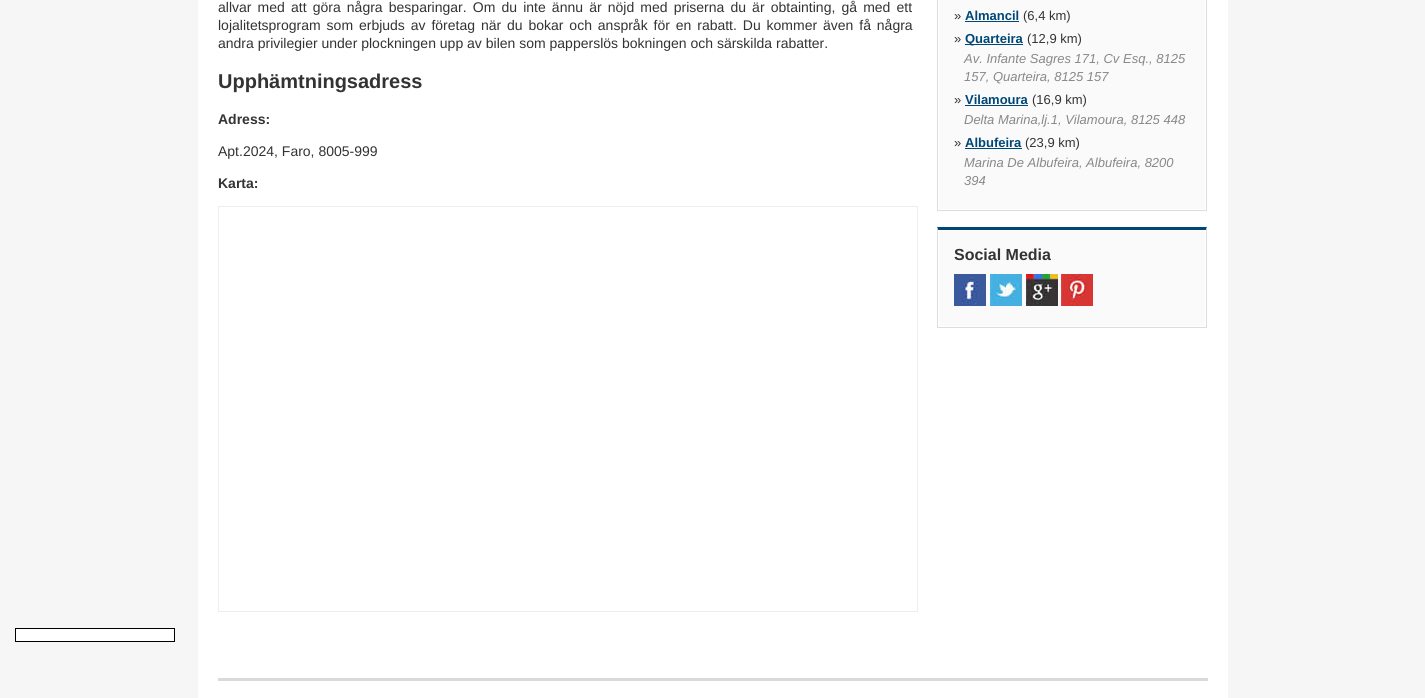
import math
import cairo

surface = cairo.ImageSurface(cairo.FORMAT_RGB24, 1425, 698)
ctx = cairo.Context(surface)
options = cairo.FontOptions()
options.set_hint_metrics(cairo.HINT_METRICS_OFF)
options.set_hint_style(cairo.HINT_STYLE_NONE)
ctx.set_font_options(options)
ctx.set_miter_limit(4)


def spaced_text(x, y, s, letter, word):
    ctx.move_to(x, y)
    for ch in s:
        ctx.show_text(ch)
        ctx.rel_move_to(letter + word * (ch == ' '), 0)


def picture(path, x, y, w, h):
    ctx.save()
    ctx.set_source_surface(cairo.ImageSurface.create_from_png(path), x, y)
    ctx.rectangle(x, y, w, h)
    ctx.fill()
    ctx.restore()


ctx.set_source_rgb(0.961, 0.961, 0.961)
ctx.paint()
ctx.set_source_rgb(1, 1, 1)
ctx.rectangle(198, 0, 1030, 698)
ctx.fill()
ctx.select_font_face("Liberation Sans")
ctx.set_font_size(14)
ctx.set_source_rgb(0.2, 0.2, 0.2)
spaced_text(218, 12, "allvar med att göra några besparingar. Om du inte ännu är nöjd med priserna du är obtainting, gå med ett", 0, 2.25)
spaced_text(218, 30, "lojalitetsprogram som erbjuds av företag när du bokar och anspråk för en rabatt. Du kommer även få några", 0, 2)
ctx.move_to(218, 48)
ctx.show_text("andra privilegier under plockningen upp av bilen som papperslös bokningen och särskilda rabatter.")
ctx.select_font_face("Liberation Sans", cairo.FONT_SLANT_NORMAL, cairo.FONT_WEIGHT_BOLD)
ctx.set_font_size(20)
ctx.move_to(218, 88)
ctx.show_text("Upphämtningsadress")
ctx.set_font_size(14)
ctx.move_to(218, 124)
ctx.show_text("Adress:")
ctx.select_font_face("Liberation Sans")
ctx.move_to(218, 156)
ctx.show_text("Apt.2024, Faro, 8005-999")
ctx.select_font_face("Liberation Sans", cairo.FONT_SLANT_NORMAL, cairo.FONT_WEIGHT_BOLD)
ctx.move_to(218, 188)
ctx.show_text("Karta:")
ctx.rectangle(218.5, 206.5, 699, 405)
ctx.set_source_rgb(0.933, 0.933, 0.933)
ctx.set_line_width(1)
ctx.stroke()
ctx.set_source_rgb(1, 1, 1)
ctx.rectangle(15.5, 628.5, 159, 13)
ctx.fill_preserve()
ctx.set_source_rgb(0, 0, 0)
ctx.stroke()
ctx.set_source_rgb(0.867, 0.867, 0.867)
ctx.new_path()
ctx.move_to(1207, -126)
ctx.line_to(1207, 211)
ctx.line_to(1206, 210)
ctx.line_to(1206, -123)
ctx.close_path()
ctx.fill()
ctx.rectangle(937, 210, 270, 1)
ctx.fill()
ctx.new_path()
ctx.move_to(937, 211)
ctx.line_to(937, -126)
ctx.line_to(938, -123)
ctx.line_to(938, 210)
ctx.close_path()
ctx.fill()
ctx.set_source_rgb(0.98, 0.98, 0.98)
ctx.rectangle(939, 0, 266, 209)
ctx.fill()
ctx.select_font_face("Liberation Sans")
ctx.set_font_size(13)
ctx.set_source_rgb(0.2, 0.2, 0.2)
ctx.move_to(954, 20)
ctx.show_text("»")
ctx.select_font_face("Liberation Sans", cairo.FONT_SLANT_NORMAL, cairo.FONT_WEIGHT_BOLD)
ctx.set_source_rgb(0, 0.278, 0.467)
ctx.move_to(965, 20)
ctx.show_text("Almancil")
ctx.rectangle(965, 21, 54, 1)
ctx.fill()
ctx.select_font_face("Liberation Sans")
ctx.set_source_rgb(0.2, 0.2, 0.2)
ctx.move_to(1023, 20)
ctx.show_text("(6,4 km)")
ctx.move_to(954, 43)
ctx.show_text("»")
ctx.set_source_rgb(0, 0.278, 0.467)
ctx.rectangle(965, 44, 58, 1)
ctx.fill()
ctx.select_font_face("Liberation Sans", cairo.FONT_SLANT_NORMAL, cairo.FONT_WEIGHT_BOLD)
ctx.move_to(965, 43)
ctx.show_text("Quarteira")
ctx.select_font_face("Liberation Sans")
ctx.set_source_rgb(0.2, 0.2, 0.2)
ctx.move_to(1027, 43)
ctx.show_text("(12,9 km)")
ctx.select_font_face("Liberation Sans", cairo.FONT_SLANT_ITALIC)
ctx.set_source_rgb(0.533, 0.533, 0.533)
ctx.move_to(964, 63)
ctx.show_text("Av. Infante Sagres 171, Cv Esq., 8125")
ctx.move_to(964, 81)
ctx.show_text("157, Quarteira, 8125 157")
ctx.select_font_face("Liberation Sans")
ctx.set_source_rgb(0.2, 0.2, 0.2)
ctx.move_to(954, 104)
ctx.show_text("»")
ctx.select_font_face("Liberation Sans", cairo.FONT_SLANT_NORMAL, cairo.FONT_WEIGHT_BOLD)
ctx.set_source_rgb(0, 0.278, 0.467)
ctx.move_to(965, 104)
ctx.show_text("Vilamoura")
ctx.rectangle(965, 105, 63, 1)
ctx.fill()
ctx.select_font_face("Liberation Sans")
ctx.set_source_rgb(0.2, 0.2, 0.2)
ctx.move_to(1032, 104)
ctx.show_text("(16,9 km)")
ctx.select_font_face("Liberation Sans", cairo.FONT_SLANT_ITALIC)
ctx.set_source_rgb(0.533, 0.533, 0.533)
ctx.move_to(964, 124)
ctx.show_text("Delta Marina,lj.1, Vilamoura, 8125 448")
ctx.select_font_face("Liberation Sans")
ctx.set_source_rgb(0.2, 0.2, 0.2)
ctx.move_to(954, 147)
ctx.show_text("»")
ctx.select_font_face("Liberation Sans", cairo.FONT_SLANT_NORMAL, cairo.FONT_WEIGHT_BOLD)
ctx.set_source_rgb(0, 0.278, 0.467)
ctx.move_to(965, 147)
ctx.show_text("Albufeira")
ctx.rectangle(965, 148, 57, 1)
ctx.fill()
ctx.select_font_face("Liberation Sans")
ctx.set_source_rgb(0.2, 0.2, 0.2)
ctx.move_to(1025, 147)
ctx.show_text("(23,9 km)")
ctx.select_font_face("Liberation Sans", cairo.FONT_SLANT_ITALIC)
ctx.set_source_rgb(0.533, 0.533, 0.533)
ctx.move_to(964, 167)
ctx.show_text("Marina De Albufeira, Albufeira, 8200")
ctx.move_to(964, 185)
ctx.show_text("394")
ctx.set_source_rgb(0, 0.278, 0.467)
ctx.new_path()
ctx.move_to(937, 227)
ctx.line_to(1207, 227)
ctx.line_to(1206, 230)
ctx.line_to(938, 230)
ctx.close_path()
ctx.fill()
ctx.set_source_rgb(0.867, 0.867, 0.867)
ctx.new_path()
ctx.move_to(1207, 227)
ctx.line_to(1207, 328)
ctx.line_to(1206, 327)
ctx.line_to(1206, 230)
ctx.close_path()
ctx.fill()
ctx.rectangle(937, 327, 270, 1)
ctx.fill()
ctx.new_path()
ctx.move_to(937, 328)
ctx.line_to(937, 227)
ctx.line_to(938, 230)
ctx.line_to(938, 327)
ctx.close_path()
ctx.fill()
ctx.set_source_rgb(0.98, 0.98, 0.98)
ctx.rectangle(939, 231, 266, 95)
ctx.fill()
ctx.select_font_face("Liberation Sans", cairo.FONT_SLANT_NORMAL, cairo.FONT_WEIGHT_BOLD)
ctx.set_font_size(16)
ctx.set_source_rgb(0.2, 0.2, 0.2)
ctx.move_to(954, 260)
ctx.show_text("Social Media")
picture("img1.png", 954, 274, 32, 32)
picture("img2.png", 990, 274, 32, 32)
picture("img3.png", 1026, 274, 32, 32)
picture("img4.png", 1061, 274, 32, 32)
ctx.set_source_rgb(0.855, 0.855, 0.855)
ctx.rectangle(218, 678, 990, 3)
ctx.fill()
surface.write_to_png("page.png")
